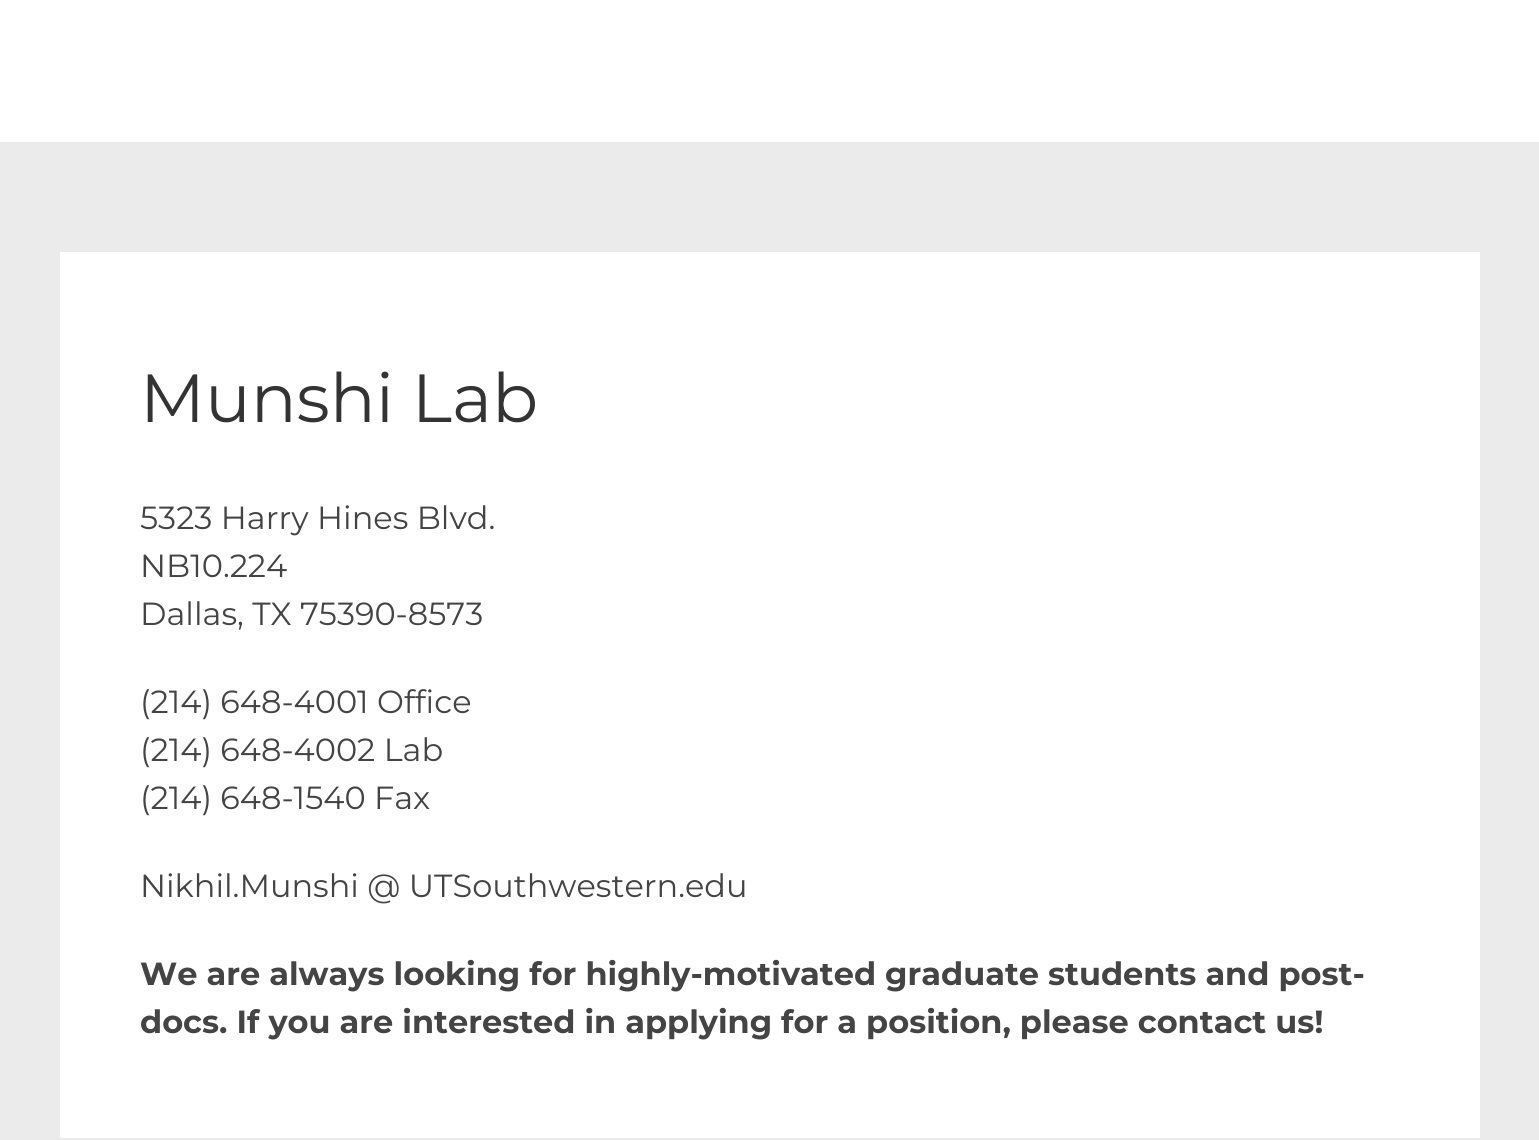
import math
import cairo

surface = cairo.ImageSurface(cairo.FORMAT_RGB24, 1539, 1140)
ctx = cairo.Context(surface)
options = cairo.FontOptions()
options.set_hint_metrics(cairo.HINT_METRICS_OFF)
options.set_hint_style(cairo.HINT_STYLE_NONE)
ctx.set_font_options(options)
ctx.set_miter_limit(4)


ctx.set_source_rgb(0.918, 0.918, 0.918)
ctx.paint()
ctx.set_source_rgb(1, 1, 1)
ctx.rectangle(0, 0, 1539, 142)
ctx.fill()
ctx.rectangle(60, 252, 1420, 886)
ctx.fill()
ctx.select_font_face("Montserrat Thin")
ctx.set_font_size(68)
ctx.set_source_rgb(0.2, 0.2, 0.2)
ctx.move_to(140, 422)
ctx.show_text("Munshi Lab")
ctx.set_font_size(32)
ctx.set_source_rgb(0.267, 0.267, 0.267)
ctx.move_to(140, 529)
ctx.show_text("5323 Harry Hines Blvd.")
ctx.move_to(140, 577)
ctx.show_text("NB10.224")
ctx.move_to(140, 625)
ctx.show_text("Dallas, TX 75390-8573")
ctx.move_to(140, 713)
ctx.show_text("(214) 648-4001 Office")
ctx.move_to(140, 761)
ctx.show_text("(214) 648-4002 Lab")
ctx.move_to(140, 809)
ctx.show_text("(214) 648-1540 Fax")
ctx.move_to(140, 897)
ctx.show_text("Nikhil.Munshi @ UTSouthwestern.edu")
ctx.select_font_face("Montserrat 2 Thin")
ctx.move_to(140, 985)
ctx.show_text("We are always looking for highly-motivated graduate students and post-")
ctx.move_to(140, 1033)
ctx.show_text("docs. If you are interested in applying for a position, please contact us!")
surface.write_to_png("page.png")
